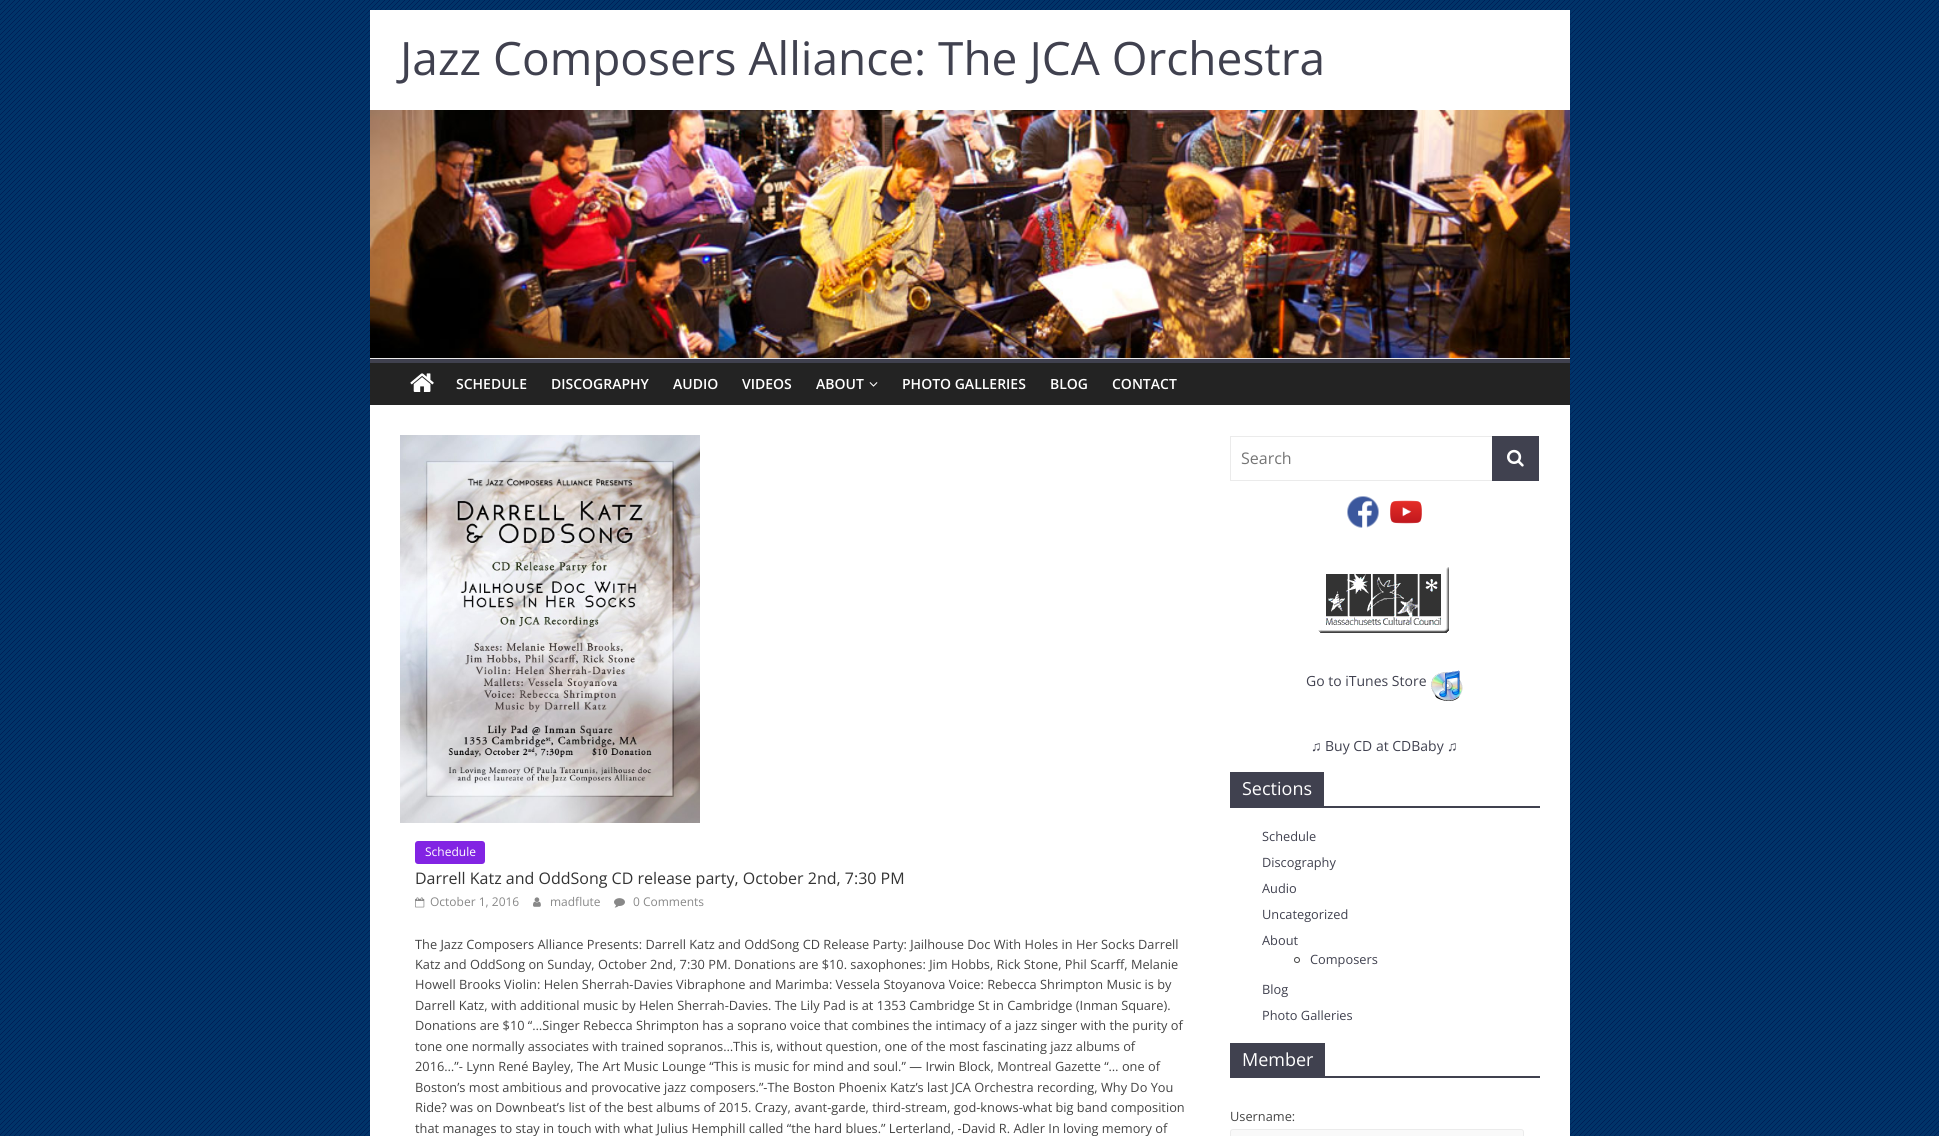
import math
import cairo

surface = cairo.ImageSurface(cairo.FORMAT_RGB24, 1939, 1136)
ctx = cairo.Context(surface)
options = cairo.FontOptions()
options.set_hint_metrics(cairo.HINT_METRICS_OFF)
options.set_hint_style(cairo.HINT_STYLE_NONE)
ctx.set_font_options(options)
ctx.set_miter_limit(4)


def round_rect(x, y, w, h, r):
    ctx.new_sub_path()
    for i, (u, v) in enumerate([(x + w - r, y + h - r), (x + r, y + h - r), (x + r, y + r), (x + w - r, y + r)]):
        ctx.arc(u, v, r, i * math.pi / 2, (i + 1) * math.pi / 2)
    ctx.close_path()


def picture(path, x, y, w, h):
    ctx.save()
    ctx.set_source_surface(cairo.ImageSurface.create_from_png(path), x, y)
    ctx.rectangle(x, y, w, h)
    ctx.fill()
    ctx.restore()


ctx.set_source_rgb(1, 1, 1)
ctx.paint()
picture("img1.png", 0, 0, 1939, 1136)
ctx.set_source_rgb(1, 1, 1)
ctx.rectangle(370, 10, 1200, 100)
ctx.fill()
ctx.select_font_face("Open Sans")
ctx.set_font_size(46)
ctx.set_source_rgb(0.251, 0.255, 0.31)
ctx.move_to(400, 75)
ctx.show_text("Jazz Composers Alliance: The JCA Orchestra")
picture("img2.png", 370, 110, 1200, 248)
ctx.set_source_rgb(0.918, 0.918, 0.918)
ctx.rectangle(370, 358, 1200, 1)
ctx.fill()
ctx.set_source_rgb(0.137, 0.137, 0.137)
ctx.rectangle(370, 363, 1200, 42)
ctx.fill()
ctx.set_source_rgb(0.251, 0.255, 0.31)
ctx.rectangle(370, 359, 1200, 4)
ctx.fill()
picture("img3.png", 410, 373, 24, 19)
ctx.select_font_face("Open Sans SemiBold")
ctx.set_font_size(14)
ctx.set_source_rgb(1, 1, 1)
ctx.move_to(456, 389)
ctx.show_text("SCHEDULE")
ctx.move_to(551, 389)
ctx.show_text("DISCOGRAPHY")
ctx.move_to(673, 389)
ctx.show_text("AUDIO")
ctx.move_to(742, 389)
ctx.show_text("VIDEOS")
ctx.move_to(816, 389)
ctx.show_text("ABOUT")
picture("img4.png", 869, 382, 9, 5)
ctx.move_to(902, 389)
ctx.show_text("PHOTO GALLERIES")
ctx.move_to(1050, 389)
ctx.show_text("BLOG")
ctx.move_to(1112, 389)
ctx.show_text("CONTACT")
ctx.rectangle(370, 405, 1200, 731)
ctx.fill()
picture("img5.png", 400, 435, 300, 388)
ctx.set_source_rgb(0.51, 0.141, 0.89)
round_rect(415, 841, 70, 23, 3)
ctx.fill()
ctx.select_font_face("Open Sans")
ctx.set_font_size(12)
ctx.set_source_rgb(1, 1, 1)
ctx.move_to(425, 856)
ctx.show_text("Schedule")
ctx.set_font_size(16)
ctx.set_source_rgb(0.2, 0.2, 0.2)
ctx.move_to(415, 884)
ctx.show_text("Darrell Katz and OddSong CD release party, October 2nd, 7:30 PM")
picture("img6.png", 415, 897, 10, 11)
ctx.set_font_size(12)
ctx.set_source_rgb(0.533, 0.533, 0.533)
ctx.move_to(430, 906)
ctx.show_text("October 1, 2016")
picture("img7.png", 533, 897, 8, 10)
ctx.move_to(550, 906)
ctx.show_text("madflute")
picture("img8.png", 614, 898, 11, 10)
ctx.move_to(633, 906)
ctx.show_text("0 Comments")
ctx.set_font_size(12.8)
ctx.set_source_rgb(0.267, 0.267, 0.267)
ctx.move_to(415, 949)
ctx.show_text("The Jazz Composers Alliance Presents: Darrell Katz and OddSong CD Release Party: Jailhouse Doc With Holes in Her Socks Darrell")
ctx.move_to(415, 969)
ctx.show_text("Katz and OddSong on Sunday, October 2nd, 7:30 PM. Donations are $10. saxophones: Jim Hobbs, Rick Stone, Phil Scarff, Melanie")
ctx.move_to(415, 989)
ctx.show_text("Howell Brooks Violin: Helen Sherrah-Davies Vibraphone and Marimba: Vessela Stoyanova Voice: Rebecca Shrimpton Music is by")
ctx.move_to(415, 1010)
ctx.show_text("Darrell Katz, with additional music by Helen Sherrah-Davies. The Lily Pad is at 1353 Cambridge St in Cambridge (Inman Square).")
ctx.move_to(415, 1030)
ctx.show_text("Donations are $10 “…Singer Rebecca Shrimpton has a soprano voice that combines the intimacy of a jazz singer with the purity of")
ctx.move_to(415, 1051)
ctx.show_text("tone one normally associates with trained sopranos…This is, without question, one of the most fascinating jazz albums of")
ctx.move_to(415, 1071)
ctx.show_text("2016…”- Lynn René Bayley, The Art Music Lounge “This is music for mind and soul.” — Irwin Block, Montreal Gazette “… one of")
ctx.move_to(415, 1092)
ctx.show_text("Boston’s most ambitious and provocative jazz composers.”-The Boston Phoenix Katz’s last JCA Orchestra recording, Why Do You")
ctx.move_to(415, 1112)
ctx.show_text("Ride? was on Downbeat’s list of the best albums of 2015. Crazy, avant-garde, third-stream, god-knows-what big band composition")
ctx.move_to(415, 1133)
ctx.show_text("that manages to stay in touch with what Julius Hemphill called “the hard blues.” Lerterland, -David R. Adler In loving memory of")
ctx.rectangle(1230.5, 436.5, 262, 44)
ctx.set_source_rgb(0.918, 0.918, 0.918)
ctx.set_line_width(1)
ctx.stroke()
ctx.set_font_size(16)
ctx.set_source_rgb(0.459, 0.459, 0.459)
ctx.move_to(1241, 464)
ctx.show_text("Search")
ctx.set_source_rgb(0.251, 0.255, 0.31)
ctx.rectangle(1492, 436, 47, 45)
ctx.fill()
picture("img9.png", 1507, 449, 17, 18)
picture("img10.png", 1347, 496, 32, 32)
picture("img11.png", 1390, 500, 32, 24)
picture("img12.png", 1318, 567, 131, 66)
ctx.set_font_size(14)
ctx.move_to(1306, 686)
ctx.show_text("Go to iTunes Store")
picture("img13.png", 1431, 670, 32, 31)
ctx.select_font_face("Liberation Serif")
ctx.move_to(1311, 751)
ctx.show_text("♫")
ctx.select_font_face("Open Sans")
ctx.move_to(1325, 751)
ctx.show_text("Buy CD at CDBaby")
ctx.select_font_face("Liberation Serif")
ctx.move_to(1447, 751)
ctx.show_text("♫")
ctx.rectangle(1230, 806, 310, 2)
ctx.fill()
ctx.rectangle(1230, 772, 94, 34)
ctx.fill()
ctx.select_font_face("Open Sans")
ctx.set_font_size(18)
ctx.set_source_rgb(1, 1, 1)
ctx.move_to(1242, 795)
ctx.show_text("Sections")
ctx.set_font_size(12.8)
ctx.set_source_rgb(0.251, 0.255, 0.31)
ctx.move_to(1262, 841)
ctx.show_text("Schedule")
ctx.move_to(1262, 867)
ctx.show_text("Discography")
ctx.move_to(1262, 893)
ctx.show_text("Audio")
ctx.move_to(1262, 919)
ctx.show_text("Uncategorized")
ctx.move_to(1262, 945)
ctx.show_text("About")
ctx.new_path()
ctx.arc(1297, 960, 2.5, 0, 2 * math.pi)
ctx.set_source_rgb(0.267, 0.267, 0.267)
ctx.stroke()
ctx.set_source_rgb(0.251, 0.255, 0.31)
ctx.move_to(1310, 964)
ctx.show_text("Composers")
ctx.move_to(1262, 994)
ctx.show_text("Blog")
ctx.move_to(1262, 1020)
ctx.show_text("Photo Galleries")
ctx.rectangle(1230, 1076, 310, 2)
ctx.fill()
ctx.rectangle(1230, 1043, 95, 33)
ctx.fill()
ctx.set_font_size(18)
ctx.set_source_rgb(1, 1, 1)
ctx.move_to(1242, 1066)
ctx.show_text("Member")
ctx.set_font_size(12.8)
ctx.set_source_rgb(0.267, 0.267, 0.267)
ctx.move_to(1230, 1121)
ctx.show_text("Username:")
ctx.set_source_rgb(0.973, 0.973, 0.973)
round_rect(1230.5, 1129.5, 293, 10, 2.5)
ctx.fill_preserve()
ctx.set_source_rgb(0.918, 0.918, 0.918)
ctx.stroke()
surface.write_to_png("page.png")
